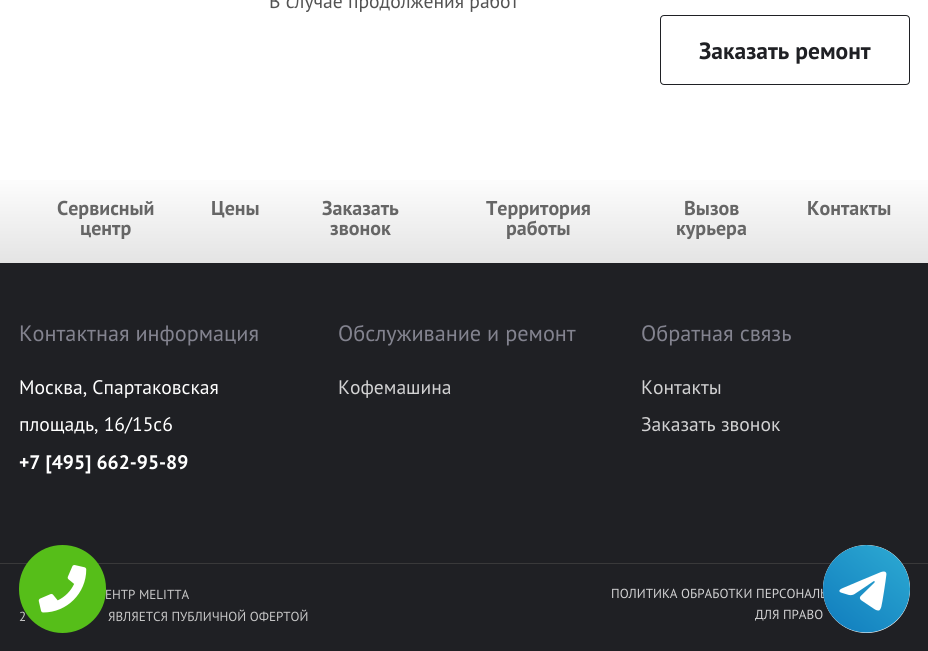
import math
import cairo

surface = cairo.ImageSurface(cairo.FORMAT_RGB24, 928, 651)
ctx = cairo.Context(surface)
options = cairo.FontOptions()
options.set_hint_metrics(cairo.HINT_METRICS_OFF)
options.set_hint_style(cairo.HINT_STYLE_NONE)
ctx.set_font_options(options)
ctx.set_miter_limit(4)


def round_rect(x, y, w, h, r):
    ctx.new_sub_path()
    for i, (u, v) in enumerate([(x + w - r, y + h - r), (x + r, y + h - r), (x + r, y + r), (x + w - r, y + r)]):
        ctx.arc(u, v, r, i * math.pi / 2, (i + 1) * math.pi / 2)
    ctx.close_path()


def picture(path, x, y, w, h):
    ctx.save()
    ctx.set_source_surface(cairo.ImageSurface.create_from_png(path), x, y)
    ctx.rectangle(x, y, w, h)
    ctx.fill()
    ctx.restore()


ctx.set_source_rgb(1, 1, 1)
ctx.paint()
ctx.select_font_face("PT Sans")
ctx.set_font_size(19.6)
ctx.set_source_rgb(0.325, 0.325, 0.325)
ctx.move_to(269, 8)
ctx.show_text("В случае продолжения работ")
round_rect(660.5, 15.5, 249, 69, 3.5)
ctx.set_source_rgb(0.122, 0.125, 0.141)
ctx.set_line_width(1)
ctx.stroke()
ctx.select_font_face("PT Sans", cairo.FONT_SLANT_NORMAL, cairo.FONT_WEIGHT_BOLD)
ctx.set_font_size(23.5)
ctx.move_to(699, 59)
ctx.show_text("Заказать ремонт")
gradient = cairo.LinearGradient(464, 172, 464, 263)
gradient.add_color_stop_rgba(0, 1, 1, 1, 1)
gradient.add_color_stop_rgba(1, 0.894, 0.894, 0.894, 1)
ctx.set_source(gradient)
ctx.rectangle(0, 180, 928, 83)
ctx.fill()
ctx.set_font_size(20)
ctx.set_source_rgb(0.4, 0.4, 0.4)
ctx.move_to(57, 215)
ctx.show_text("Сервисный")
ctx.move_to(80, 235)
ctx.show_text("центр")
ctx.move_to(211, 215)
ctx.show_text("Цены")
ctx.move_to(322, 215)
ctx.show_text("Заказать")
ctx.move_to(330, 235)
ctx.show_text("звонок")
ctx.move_to(486, 215)
ctx.show_text("Территория")
ctx.move_to(506, 235)
ctx.show_text("работы")
ctx.move_to(684, 215)
ctx.show_text("Вызов")
ctx.move_to(676, 235)
ctx.show_text("курьера")
ctx.move_to(807, 215)
ctx.show_text("Контакты")
ctx.set_source_rgb(0.122, 0.125, 0.141)
ctx.rectangle(0, 263, 928, 300)
ctx.fill()
ctx.select_font_face("PT Sans")
ctx.set_font_size(22.25)
ctx.set_source_rgb(0.514, 0.514, 0.561)
ctx.move_to(19, 341)
ctx.show_text("Контактная информация")
ctx.set_font_size(19.6)
ctx.set_source_rgb(1, 1, 1)
ctx.move_to(19, 394)
ctx.show_text("Москва, Спартаковская")
ctx.move_to(19, 431)
ctx.show_text("площадь, 16/15с6")
ctx.select_font_face("PT Sans", cairo.FONT_SLANT_NORMAL, cairo.FONT_WEIGHT_BOLD)
ctx.move_to(19, 469)
ctx.show_text("+7 [495] 662-95-89")
ctx.select_font_face("PT Sans")
ctx.set_font_size(22.25)
ctx.set_source_rgb(0.514, 0.514, 0.561)
ctx.move_to(338, 341)
ctx.show_text("Обслуживание и ремонт")
ctx.set_font_size(19.6)
ctx.set_source_rgb(0.824, 0.824, 0.827)
ctx.move_to(338, 394)
ctx.show_text("Кофемашина")
ctx.set_font_size(22.25)
ctx.set_source_rgb(0.514, 0.514, 0.561)
ctx.move_to(641, 341)
ctx.show_text("Обратная связь")
ctx.set_font_size(19.6)
ctx.set_source_rgb(0.824, 0.824, 0.827)
ctx.move_to(641, 394)
ctx.show_text("Контакты")
ctx.move_to(641, 431)
ctx.show_text("Заказать звонок")
ctx.set_source_rgb(0.224, 0.224, 0.227)
ctx.rectangle(0, 563, 928, 1)
ctx.fill()
ctx.set_source_rgb(0.122, 0.125, 0.141)
ctx.rectangle(0, 564, 928, 87)
ctx.fill()
ctx.set_font_size(13.1)
ctx.set_source_rgb(0.784, 0.784, 0.784)
ctx.move_to(105, 599)
ctx.show_text("ЕНТР MELITTA")
ctx.move_to(19, 621)
ctx.show_text("2")
ctx.move_to(108, 621)
ctx.show_text("ЯВЛЯЕТСЯ ПУБЛИЧНОЙ ОФЕРТОЙ")
ctx.set_source_rgb(0.824, 0.824, 0.827)
ctx.move_to(611, 598)
ctx.show_text("ПОЛИТИКА ОБРАБОТКИ ПЕРСОНАЛЬ")
ctx.move_to(755, 619)
ctx.show_text("ДЛЯ ПРАВО")
ctx.set_source_rgb(0.337, 0.745, 0.098)
round_rect(19, 545, 87, 88, 43.5)
ctx.fill()
picture("img1.png", 38, 565, 49, 48)
ctx.set_source_rgb(1, 1, 1)
round_rect(823, 545, 87, 88, 43.5)
ctx.fill()
picture("img2.png", 823, 545, 87, 88)
surface.write_to_png("page.png")
